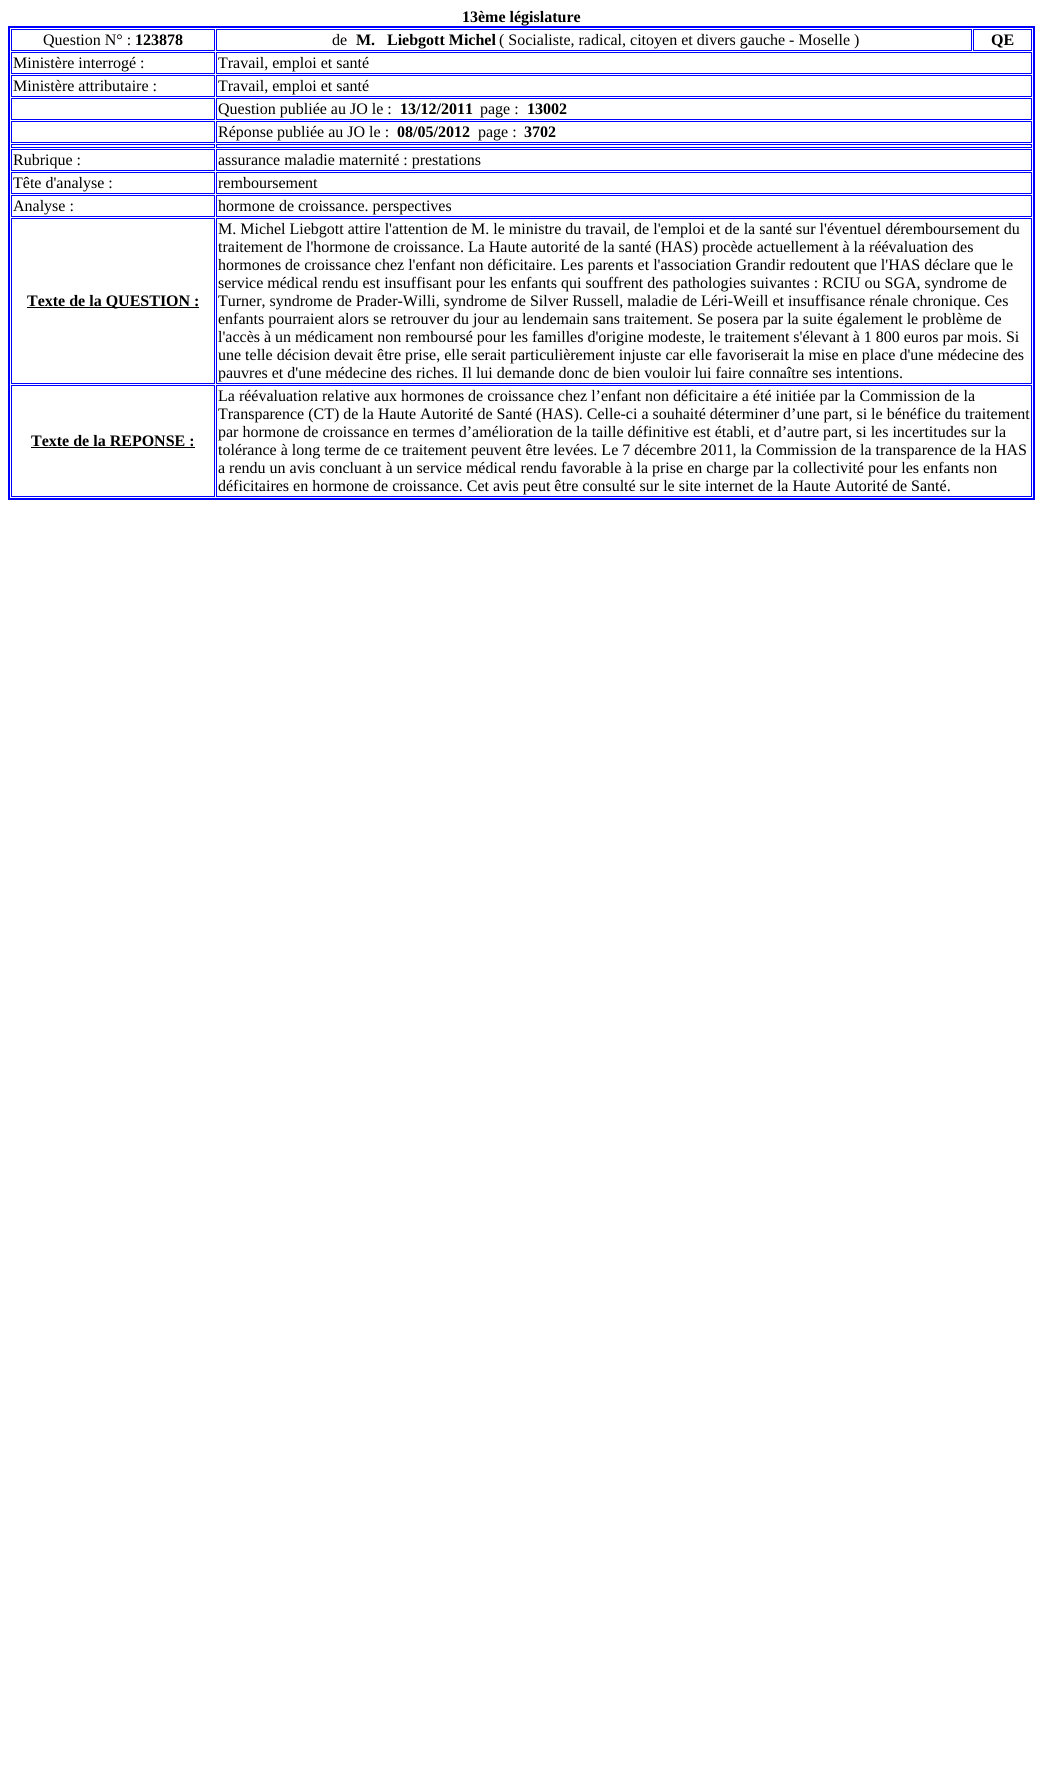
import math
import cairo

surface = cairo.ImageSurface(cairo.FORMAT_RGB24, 1043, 1765)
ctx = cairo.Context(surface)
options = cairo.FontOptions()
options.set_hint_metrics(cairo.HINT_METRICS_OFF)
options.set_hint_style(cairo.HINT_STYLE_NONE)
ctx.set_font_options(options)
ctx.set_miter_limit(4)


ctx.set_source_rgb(1, 1, 1)
ctx.paint()
ctx.select_font_face("Liberation Serif", cairo.FONT_SLANT_NORMAL, cairo.FONT_WEIGHT_BOLD)
ctx.set_font_size(16)
ctx.set_source_rgb(0, 0, 0)
ctx.move_to(462, 22)
ctx.show_text("13ème législature")
ctx.rectangle(9, 27, 1025, 472)
ctx.set_source_rgb(0, 0, 1)
ctx.stroke()
ctx.rectangle(11.5, 29.5, 203, 21)
ctx.set_line_width(1)
ctx.stroke()
ctx.select_font_face("Liberation Serif")
ctx.set_source_rgb(0, 0, 0)
ctx.move_to(43, 45)
ctx.show_text("Question N° :")
ctx.select_font_face("Liberation Serif", cairo.FONT_SLANT_NORMAL, cairo.FONT_WEIGHT_BOLD)
ctx.move_to(135, 45)
ctx.show_text("123878")
ctx.rectangle(216.5, 29.5, 755, 21)
ctx.set_source_rgb(0, 0, 1)
ctx.stroke()
ctx.select_font_face("Liberation Serif")
ctx.set_source_rgb(0, 0, 0)
ctx.move_to(332, 45)
ctx.show_text("de")
ctx.select_font_face("Liberation Serif", cairo.FONT_SLANT_NORMAL, cairo.FONT_WEIGHT_BOLD)
ctx.move_to(356, 45)
ctx.show_text("M.")
ctx.move_to(387, 45)
ctx.show_text("Liebgott Michel")
ctx.select_font_face("Liberation Serif")
ctx.move_to(499, 45)
ctx.show_text("( Socialiste, radical, citoyen et divers gauche - Moselle )")
ctx.rectangle(973.5, 29.5, 58, 21)
ctx.set_source_rgb(0, 0, 1)
ctx.stroke()
ctx.select_font_face("Liberation Serif", cairo.FONT_SLANT_NORMAL, cairo.FONT_WEIGHT_BOLD)
ctx.set_source_rgb(0, 0, 0)
ctx.move_to(991, 45)
ctx.show_text("QE")
ctx.rectangle(11.5, 52.5, 203, 21)
ctx.set_source_rgb(0, 0, 1)
ctx.stroke()
ctx.select_font_face("Liberation Serif")
ctx.set_source_rgb(0, 0, 0)
ctx.move_to(13, 68)
ctx.show_text("Ministère interrogé :")
ctx.rectangle(216.5, 52.5, 815, 21)
ctx.set_source_rgb(0, 0, 1)
ctx.stroke()
ctx.set_source_rgb(0, 0, 0)
ctx.move_to(218, 68)
ctx.show_text("Travail, emploi et santé")
ctx.rectangle(11.5, 75.5, 203, 21)
ctx.set_source_rgb(0, 0, 1)
ctx.stroke()
ctx.set_source_rgb(0, 0, 0)
ctx.move_to(13, 91)
ctx.show_text("Ministère attributaire :")
ctx.rectangle(216.5, 75.5, 815, 21)
ctx.set_source_rgb(0, 0, 1)
ctx.stroke()
ctx.set_source_rgb(0, 0, 0)
ctx.move_to(218, 91)
ctx.show_text("Travail, emploi et santé")
ctx.rectangle(11.5, 98.5, 203, 21)
ctx.set_source_rgb(0, 0, 1)
ctx.stroke()
ctx.rectangle(216.5, 98.5, 815, 21)
ctx.stroke()
ctx.set_source_rgb(0, 0, 0)
ctx.move_to(218, 114)
ctx.show_text("Question publiée au JO le :")
ctx.select_font_face("Liberation Serif", cairo.FONT_SLANT_NORMAL, cairo.FONT_WEIGHT_BOLD)
ctx.move_to(400, 114)
ctx.show_text("13/12/2011")
ctx.select_font_face("Liberation Serif")
ctx.move_to(480, 114)
ctx.show_text("page :")
ctx.select_font_face("Liberation Serif", cairo.FONT_SLANT_NORMAL, cairo.FONT_WEIGHT_BOLD)
ctx.move_to(527, 114)
ctx.show_text("13002")
ctx.rectangle(11.5, 121.5, 203, 21)
ctx.set_source_rgb(0, 0, 1)
ctx.stroke()
ctx.rectangle(216.5, 121.5, 815, 21)
ctx.stroke()
ctx.select_font_face("Liberation Serif")
ctx.set_source_rgb(0, 0, 0)
ctx.move_to(218, 137)
ctx.show_text("Réponse publiée au JO le :")
ctx.select_font_face("Liberation Serif", cairo.FONT_SLANT_NORMAL, cairo.FONT_WEIGHT_BOLD)
ctx.move_to(397, 137)
ctx.show_text("08/05/2012")
ctx.select_font_face("Liberation Serif")
ctx.move_to(478, 137)
ctx.show_text("page :")
ctx.select_font_face("Liberation Serif", cairo.FONT_SLANT_NORMAL, cairo.FONT_WEIGHT_BOLD)
ctx.move_to(524, 137)
ctx.show_text("3702")
ctx.rectangle(11.5, 144.5, 203, 3)
ctx.set_source_rgb(0, 0, 1)
ctx.stroke()
ctx.rectangle(216.5, 144.5, 815, 3)
ctx.stroke()
ctx.rectangle(11.5, 149.5, 203, 21)
ctx.stroke()
ctx.select_font_face("Liberation Serif")
ctx.set_source_rgb(0, 0, 0)
ctx.move_to(13, 165)
ctx.show_text("Rubrique :")
ctx.rectangle(216.5, 149.5, 815, 21)
ctx.set_source_rgb(0, 0, 1)
ctx.stroke()
ctx.set_source_rgb(0, 0, 0)
ctx.move_to(218, 165)
ctx.show_text("assurance maladie maternité : prestations")
ctx.rectangle(11.5, 172.5, 203, 21)
ctx.set_source_rgb(0, 0, 1)
ctx.stroke()
ctx.set_source_rgb(0, 0, 0)
ctx.move_to(13, 188)
ctx.show_text("Tête d'analyse :")
ctx.rectangle(216.5, 172.5, 815, 21)
ctx.set_source_rgb(0, 0, 1)
ctx.stroke()
ctx.set_source_rgb(0, 0, 0)
ctx.move_to(218, 188)
ctx.show_text("remboursement")
ctx.rectangle(11.5, 195.5, 203, 21)
ctx.set_source_rgb(0, 0, 1)
ctx.stroke()
ctx.set_source_rgb(0, 0, 0)
ctx.move_to(13, 211)
ctx.show_text("Analyse :")
ctx.rectangle(216.5, 195.5, 815, 21)
ctx.set_source_rgb(0, 0, 1)
ctx.stroke()
ctx.set_source_rgb(0, 0, 0)
ctx.move_to(218, 211)
ctx.show_text("hormone de croissance. perspectives")
ctx.rectangle(11.5, 218.5, 203, 165)
ctx.set_source_rgb(0, 0, 1)
ctx.stroke()
ctx.set_source_rgb(0, 0, 0)
ctx.rectangle(27, 307, 172, 1)
ctx.fill()
ctx.select_font_face("Liberation Serif", cairo.FONT_SLANT_NORMAL, cairo.FONT_WEIGHT_BOLD)
ctx.move_to(27, 306)
ctx.show_text("Texte de la QUESTION :")
ctx.rectangle(216.5, 218.5, 815, 165)
ctx.set_source_rgb(0, 0, 1)
ctx.stroke()
ctx.select_font_face("Liberation Serif")
ctx.set_source_rgb(0, 0, 0)
ctx.move_to(218, 234)
ctx.show_text("M. Michel Liebgott attire l'attention de M. le ministre du travail, de l'emploi et de la santé sur l'éventuel déremboursement du")
ctx.move_to(218, 252)
ctx.show_text("traitement de l'hormone de croissance. La Haute autorité de la santé (HAS) procède actuellement à la réévaluation des")
ctx.move_to(218, 270)
ctx.show_text("hormones de croissance chez l'enfant non déficitaire. Les parents et l'association Grandir redoutent que l'HAS déclare que le")
ctx.move_to(218, 288)
ctx.show_text("service médical rendu est insuffisant pour les enfants qui souffrent des pathologies suivantes : RCIU ou SGA, syndrome de")
ctx.move_to(218, 306)
ctx.show_text("Turner, syndrome de Prader-Willi, syndrome de Silver Russell, maladie de Léri-Weill et insuffisance rénale chronique. Ces")
ctx.move_to(218, 324)
ctx.show_text("enfants pourraient alors se retrouver du jour au lendemain sans traitement. Se posera par la suite également le problème de")
ctx.move_to(218, 342)
ctx.show_text("l'accès à un médicament non remboursé pour les familles d'origine modeste, le traitement s'élevant à 1 800 euros par mois. Si")
ctx.move_to(218, 360)
ctx.show_text("une telle décision devait être prise, elle serait particulièrement injuste car elle favoriserait la mise en place d'une médecine des")
ctx.move_to(218, 378)
ctx.show_text("pauvres et d'une médecine des riches. Il lui demande donc de bien vouloir lui faire connaître ses intentions.")
ctx.rectangle(11.5, 385.5, 203, 111)
ctx.set_source_rgb(0, 0, 1)
ctx.stroke()
ctx.select_font_face("Liberation Serif", cairo.FONT_SLANT_NORMAL, cairo.FONT_WEIGHT_BOLD)
ctx.set_source_rgb(0, 0, 0)
ctx.move_to(31, 446)
ctx.show_text("Texte de la REPONSE :")
ctx.rectangle(31, 447, 164, 1)
ctx.fill()
ctx.rectangle(216.5, 385.5, 815, 111)
ctx.set_source_rgb(0, 0, 1)
ctx.stroke()
ctx.select_font_face("Liberation Serif")
ctx.set_source_rgb(0, 0, 0)
ctx.move_to(218, 401)
ctx.show_text("La réévaluation relative aux hormones de croissance chez l’enfant non déficitaire a été initiée par la Commission de la")
ctx.move_to(218, 419)
ctx.show_text("Transparence (CT) de la Haute Autorité de Santé (HAS). Celle-ci a souhaité déterminer d’une part, si le bénéfice du traitement")
ctx.move_to(218, 437)
ctx.show_text("par hormone de croissance en termes d’amélioration de la taille définitive est établi, et d’autre part, si les incertitudes sur la")
ctx.move_to(218, 455)
ctx.show_text("tolérance à long terme de ce traitement peuvent être levées. Le 7 décembre 2011, la Commission de la transparence de la HAS")
ctx.move_to(218, 473)
ctx.show_text("a rendu un avis concluant à un service médical rendu favorable à la prise en charge par la collectivité pour les enfants non")
ctx.move_to(218, 491)
ctx.show_text("déficitaires en hormone de croissance. Cet avis peut être consulté sur le site internet de la Haute Autorité de Santé.")
surface.write_to_png("page.png")
